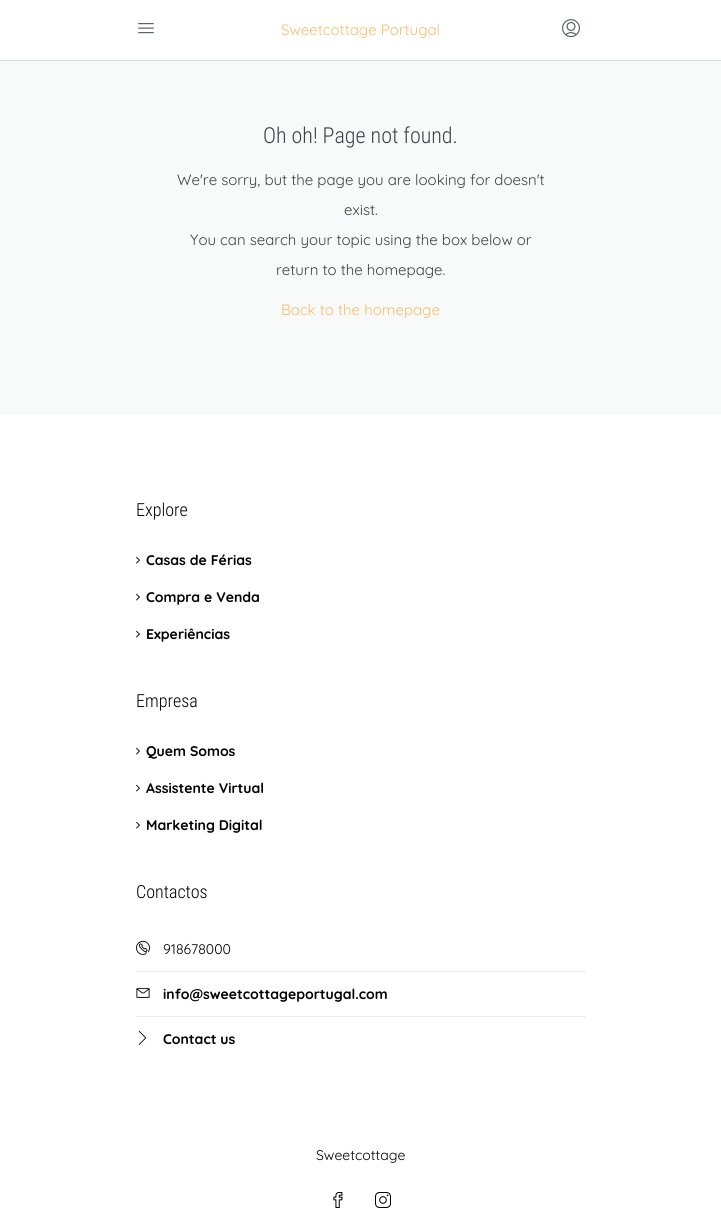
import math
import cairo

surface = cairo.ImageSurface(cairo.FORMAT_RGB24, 721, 1223)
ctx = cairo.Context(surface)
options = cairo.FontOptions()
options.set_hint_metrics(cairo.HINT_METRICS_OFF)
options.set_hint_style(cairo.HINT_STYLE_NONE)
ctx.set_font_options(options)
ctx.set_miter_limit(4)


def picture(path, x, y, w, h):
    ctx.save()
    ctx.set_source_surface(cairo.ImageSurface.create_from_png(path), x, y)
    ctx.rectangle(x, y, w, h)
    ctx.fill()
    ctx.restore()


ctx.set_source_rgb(0.969, 0.973, 0.976)
ctx.paint()
ctx.set_source_rgb(1, 1, 1)
ctx.rectangle(0, 0, 721, 60)
ctx.fill()
ctx.set_source_rgb(0.847, 0.863, 0.882)
ctx.rectangle(0, 60, 721, 1)
ctx.fill()
picture("img1.png", 138, 23, 16, 11)
ctx.select_font_face("Quicksand")
ctx.set_font_size(15)
ctx.set_source_rgb(0.969, 0.745, 0.408)
ctx.move_to(281, 35)
ctx.show_text("Sweetcottage Portugal")
picture("img2.png", 562, 19, 18, 19)
ctx.select_font_face("Roboto Condensed Light")
ctx.set_font_size(22)
ctx.set_source_rgb(0.231, 0.259, 0.286)
ctx.move_to(263, 143)
ctx.show_text("Oh oh! Page not found.")
ctx.select_font_face("Quicksand")
ctx.set_font_size(15)
ctx.move_to(177, 185)
ctx.show_text("We're sorry, but the page you are looking for doesn't")
ctx.move_to(344, 215)
ctx.show_text("exist.")
ctx.move_to(190, 245)
ctx.show_text("You can search your topic using the box below or")
ctx.move_to(276, 275)
ctx.show_text("return to the homepage.")
ctx.set_source_rgb(0.969, 0.745, 0.408)
ctx.move_to(281, 315)
ctx.show_text("Back to the homepage")
ctx.set_source_rgb(1, 1, 1)
ctx.rectangle(0, 415, 721, 808)
ctx.fill()
ctx.select_font_face("Roboto Condensed Light")
ctx.set_font_size(18)
ctx.set_source_rgb(0, 0, 0)
ctx.move_to(136, 516)
ctx.show_text("Explore")
picture("img3.png", 136, 556, 4, 8)
ctx.select_font_face("Quicksand", cairo.FONT_SLANT_NORMAL, cairo.FONT_WEIGHT_BOLD)
ctx.set_font_size(14)
ctx.move_to(146, 565)
ctx.show_text("Casas de Férias")
picture("img3.png", 136, 593, 4, 8)
ctx.move_to(146, 602)
ctx.show_text("Compra e Venda")
picture("img3.png", 136, 630, 4, 8)
ctx.move_to(146, 639)
ctx.show_text("Experiências")
ctx.select_font_face("Roboto Condensed Light")
ctx.set_font_size(18)
ctx.move_to(136, 707)
ctx.show_text("Empresa")
picture("img3.png", 136, 747, 4, 8)
ctx.select_font_face("Quicksand", cairo.FONT_SLANT_NORMAL, cairo.FONT_WEIGHT_BOLD)
ctx.set_font_size(14)
ctx.move_to(146, 756)
ctx.show_text("Quem Somos")
picture("img3.png", 136, 784, 4, 8)
ctx.move_to(146, 793)
ctx.show_text("Assistente Virtual")
picture("img3.png", 136, 821, 4, 8)
ctx.move_to(146, 830)
ctx.show_text("Marketing Digital")
ctx.select_font_face("Roboto Condensed Light")
ctx.set_font_size(18)
ctx.move_to(136, 898)
ctx.show_text("Contactos")
ctx.new_path()
ctx.move_to(136, 971.5)
ctx.line_to(586, 971.5)
ctx.set_source_rgb(0.847, 0.863, 0.882)
ctx.set_line_width(1)
ctx.set_dash([1, 1])
ctx.stroke()
picture("img4.png", 136, 940, 14, 15)
ctx.select_font_face("Quicksand")
ctx.set_font_size(14)
ctx.set_source_rgb(0, 0, 0)
ctx.move_to(163, 954)
ctx.show_text("918678000")
ctx.new_path()
ctx.move_to(136, 1016.5)
ctx.line_to(586, 1016.5)
ctx.set_source_rgb(0.847, 0.863, 0.882)
ctx.stroke()
picture("img5.png", 136, 988, 14, 10)
ctx.select_font_face("Quicksand", cairo.FONT_SLANT_NORMAL, cairo.FONT_WEIGHT_BOLD)
ctx.set_source_rgb(0, 0, 0)
ctx.move_to(163, 999)
ctx.show_text("info@sweetcottageportugal.com")
picture("img6.png", 138, 1030, 8, 15)
ctx.move_to(163, 1044)
ctx.show_text("Contact us")
ctx.select_font_face("Quicksand")
ctx.move_to(316, 1160)
ctx.show_text("Sweetcottage")
picture("img7.png", 333, 1192, 10, 16)
picture("img8.png", 375, 1192, 16, 16)
surface.write_to_png("page.png")
